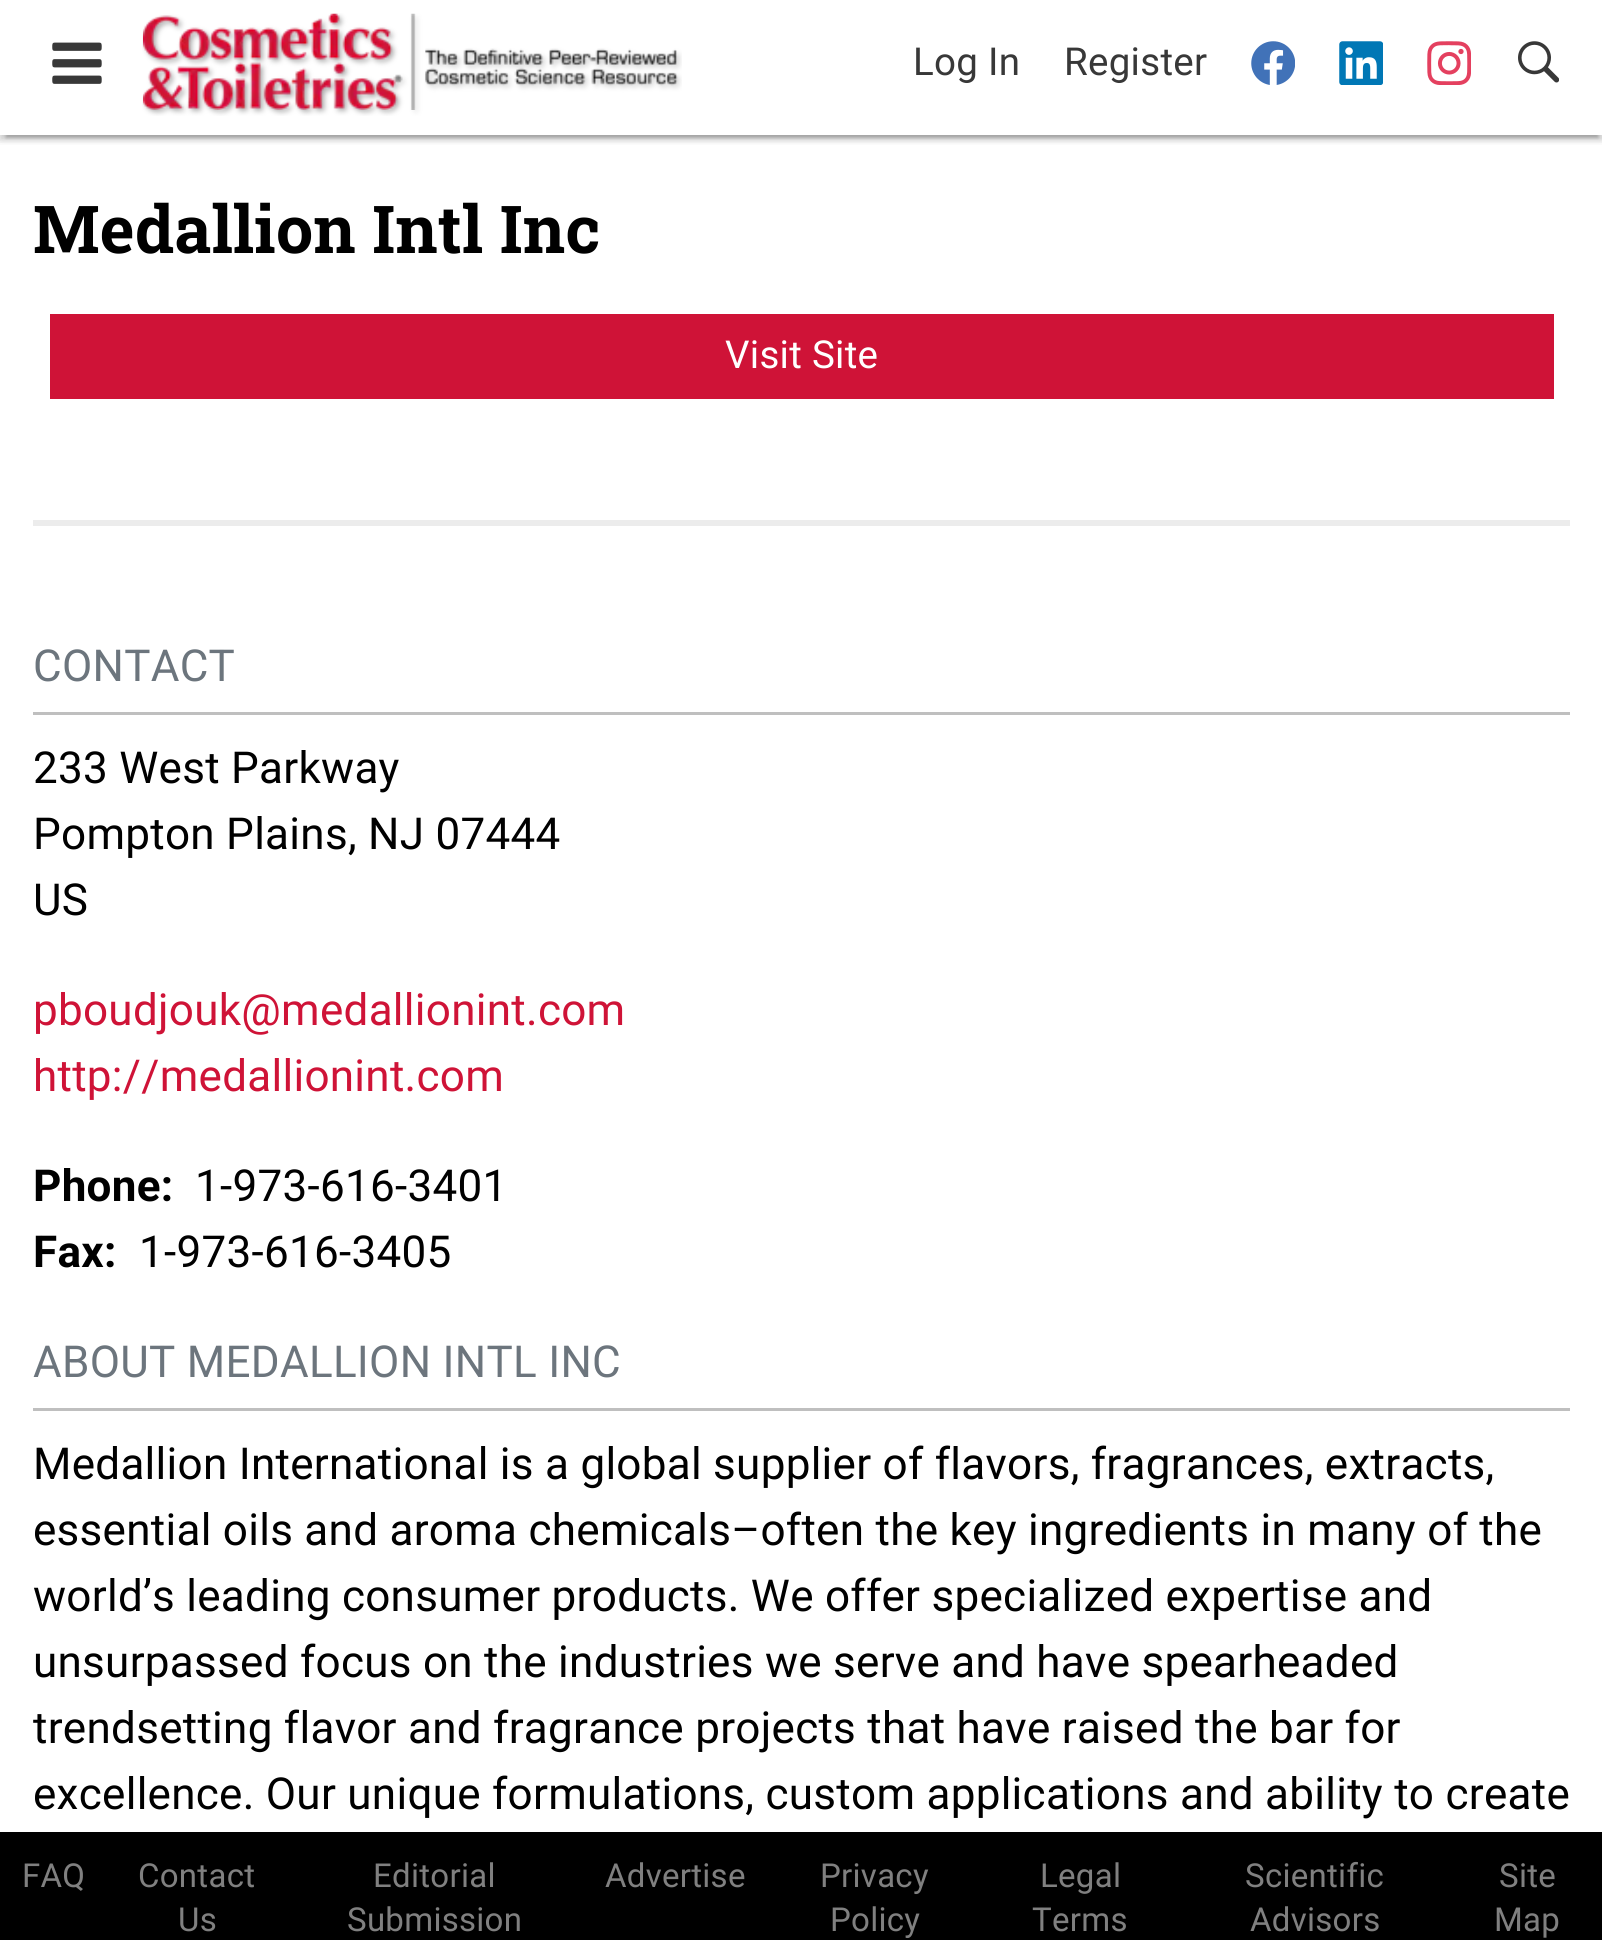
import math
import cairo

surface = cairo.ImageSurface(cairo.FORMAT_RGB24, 1602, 1940)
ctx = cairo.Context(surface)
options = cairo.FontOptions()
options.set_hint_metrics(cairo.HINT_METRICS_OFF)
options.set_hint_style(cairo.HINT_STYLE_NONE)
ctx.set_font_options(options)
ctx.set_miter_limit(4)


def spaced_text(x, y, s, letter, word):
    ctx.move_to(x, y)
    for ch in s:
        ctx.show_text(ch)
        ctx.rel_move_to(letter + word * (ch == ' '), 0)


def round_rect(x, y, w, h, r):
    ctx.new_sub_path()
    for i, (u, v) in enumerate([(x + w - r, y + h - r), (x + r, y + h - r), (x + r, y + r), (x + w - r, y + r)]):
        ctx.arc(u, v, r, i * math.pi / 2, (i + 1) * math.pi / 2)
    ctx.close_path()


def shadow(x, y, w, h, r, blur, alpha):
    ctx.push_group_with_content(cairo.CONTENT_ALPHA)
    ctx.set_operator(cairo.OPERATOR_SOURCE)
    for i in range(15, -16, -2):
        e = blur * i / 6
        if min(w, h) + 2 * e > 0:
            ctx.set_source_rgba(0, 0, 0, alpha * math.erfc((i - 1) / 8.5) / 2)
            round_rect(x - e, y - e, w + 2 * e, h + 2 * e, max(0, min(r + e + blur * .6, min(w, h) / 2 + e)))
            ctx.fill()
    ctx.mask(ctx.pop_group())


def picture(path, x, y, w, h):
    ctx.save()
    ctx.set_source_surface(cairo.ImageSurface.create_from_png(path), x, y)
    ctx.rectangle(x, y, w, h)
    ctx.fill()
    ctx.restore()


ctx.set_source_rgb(1, 1, 1)
ctx.paint()
ctx.save()
ctx.rectangle(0, 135, 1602, 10)
ctx.clip()
ctx.set_source_rgb(0, 0, 0)
shadow(0, 3, 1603, 135, 0, 7, 0.12)
ctx.restore()
ctx.save()
ctx.rectangle(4, 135, 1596, 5)
ctx.clip()
ctx.set_source_rgb(0, 0, 0)
shadow(6, 14, 1592, 124, 0, 1.5, 0.2)
ctx.restore()
ctx.save()
ctx.rectangle(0, 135, 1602, 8)
ctx.clip()
ctx.set_source_rgb(0, 0, 0)
shadow(0, 6, 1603, 134, 0, 3, 0.14)
ctx.restore()
picture("img1.png", 52, 42, 50, 42)
picture("img2.png", 142, 13, 540, 103)
ctx.select_font_face("Roboto")
ctx.set_font_size(38.5)
ctx.set_source_rgb(0.22, 0.22, 0.22)
spaced_text(913, 75, "Log In", 0.28, 0)
spaced_text(1064, 75, "Register", 0.28, 0)
picture("img3.png", 1251, 41, 44, 44)
picture("img4.png", 1339, 41, 44, 44)
picture("img5.png", 1427, 41, 44, 44)
picture("img6.png", 1518, 41, 41, 42)
ctx.set_source_rgb(1, 1, 1)
ctx.rectangle(0, 134, 1602, 1)
ctx.fill()
ctx.set_source_rgb(0.922, 0.922, 0.922)
ctx.rectangle(33, 520, 1537, 6)
ctx.fill()
ctx.select_font_face("Roboto Slab", cairo.FONT_SLANT_NORMAL, cairo.FONT_WEIGHT_BOLD)
ctx.set_font_size(66)
ctx.set_source_rgb(0, 0, 0)
spaced_text(33, 253, "Medallion Intl Inc", 0.28, 0)
ctx.set_source_rgb(0.812, 0.075, 0.216)
ctx.rectangle(50, 314, 1504, 85)
ctx.fill()
ctx.select_font_face("Roboto")
ctx.set_font_size(38.5)
ctx.set_source_rgb(1, 1, 1)
spaced_text(725, 368, "Visit Site", 0.28, 0)
ctx.set_source_rgb(0.749, 0.749, 0.749)
ctx.rectangle(33, 712, 1537, 3)
ctx.fill()
ctx.set_font_size(44)
ctx.set_source_rgb(0.424, 0.459, 0.49)
spaced_text(33, 681, "CONTACT", 0.28, 0)
ctx.set_source_rgb(0, 0, 0)
spaced_text(33, 783, "233 West Parkway", 0.28, 0)
spaced_text(33, 849, "Pompton Plains, NJ 07444", 0.28, 0)
spaced_text(33, 915, "US", 0.28, 0)
ctx.set_source_rgb(0.812, 0.075, 0.216)
spaced_text(33, 1025, "pboudjouk@medallionint.com", 0.28, 0)
spaced_text(33, 1091, "http://medallionint.com", 0.28, 0)
ctx.select_font_face("Roboto", cairo.FONT_SLANT_NORMAL, cairo.FONT_WEIGHT_BOLD)
ctx.set_source_rgb(0, 0, 0)
spaced_text(33, 1201, "Phone:", 0.28, 0)
ctx.select_font_face("Roboto")
spaced_text(195, 1201, "1-973-616-3401", 0.28, 0)
ctx.select_font_face("Roboto", cairo.FONT_SLANT_NORMAL, cairo.FONT_WEIGHT_BOLD)
spaced_text(33, 1267, "Fax:", 0.28, 0)
ctx.select_font_face("Roboto")
spaced_text(139, 1267, "1-973-616-3405", 0.28, 0)
ctx.set_source_rgb(0.749, 0.749, 0.749)
ctx.rectangle(33, 1408, 1537, 3)
ctx.fill()
ctx.set_source_rgb(0.424, 0.459, 0.49)
spaced_text(33, 1377, "ABOUT MEDALLION INTL INC", 0.28, 0)
ctx.set_source_rgb(0, 0, 0)
spaced_text(33, 1479, "Medallion International is a global supplier of flavors, fragrances, extracts,", 0.28, 0)
spaced_text(33, 1545, "essential oils and aroma chemicals–often the key ingredients in many of the", 0.28, 0)
spaced_text(33, 1611, "world’s leading consumer products. We offer specialized expertise and", 0.28, 0)
spaced_text(33, 1677, "unsurpassed focus on the industries we serve and have spearheaded", 0.28, 0)
spaced_text(33, 1743, "trendsetting flavor and fragrance projects that have raised the bar for", 0.28, 0)
spaced_text(33, 1809, "excellence. Our unique formulations, custom applications and ability to create", 0.28, 0)
ctx.rectangle(0, 1832, 1602, 108)
ctx.fill()
ctx.set_font_size(33)
ctx.set_source_rgb(0.502, 0.502, 0.502)
spaced_text(22, 1887, "FAQ", 0.28, 0)
spaced_text(138, 1887, "Contact", 0.28, 0)
spaced_text(178, 1931, "Us", 0.28, 0)
spaced_text(373, 1887, "Editorial", 0.28, 0)
spaced_text(347, 1931, "Submission", 0.28, 0)
spaced_text(605, 1887, "Advertise", 0.28, 0)
spaced_text(820, 1887, "Privacy", 0.28, 0)
spaced_text(830, 1931, "Policy", 0.28, 0)
spaced_text(1040, 1887, "Legal", 0.28, 0)
spaced_text(1032, 1931, "Terms", 0.28, 0)
spaced_text(1245, 1887, "Scientific", 0.28, 0)
spaced_text(1250, 1931, "Advisors", 0.28, 0)
spaced_text(1499, 1887, "Site", 0.28, 0)
spaced_text(1494, 1931, "Map", 0.28, 0)
surface.write_to_png("page.png")
